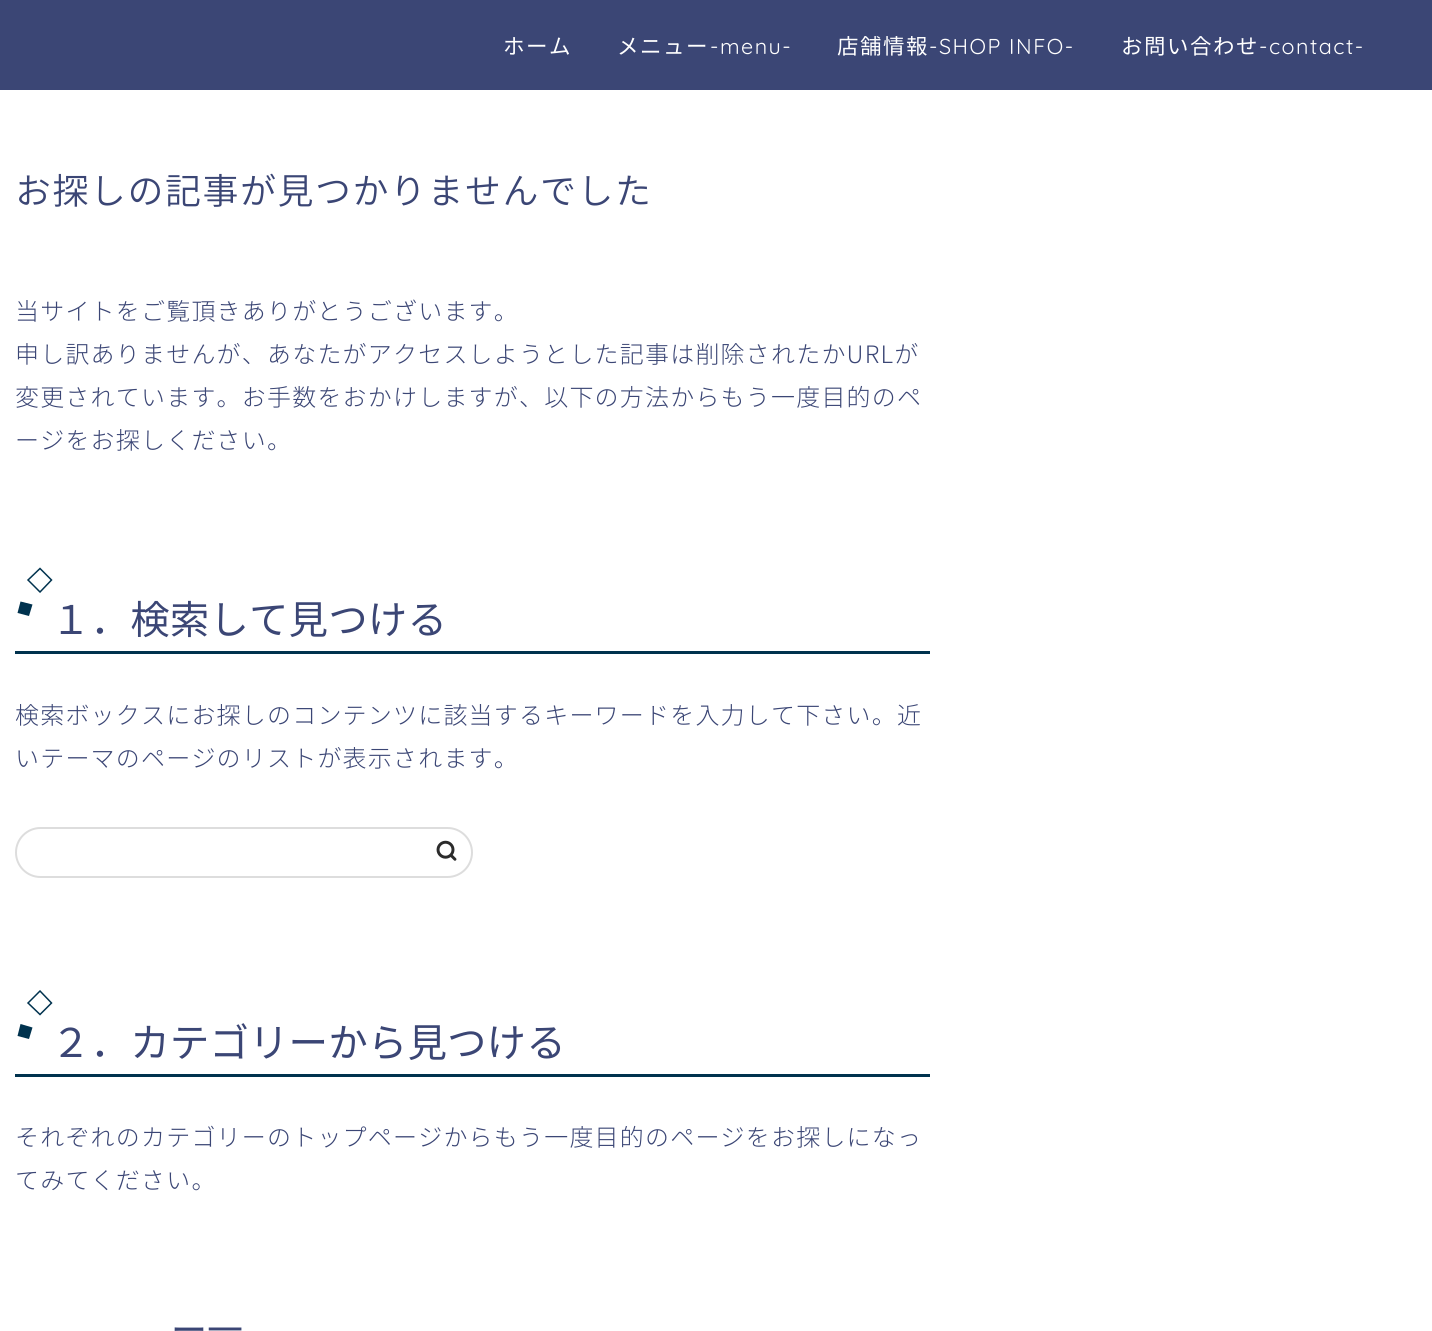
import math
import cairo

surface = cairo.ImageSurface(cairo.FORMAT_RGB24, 1432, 1331)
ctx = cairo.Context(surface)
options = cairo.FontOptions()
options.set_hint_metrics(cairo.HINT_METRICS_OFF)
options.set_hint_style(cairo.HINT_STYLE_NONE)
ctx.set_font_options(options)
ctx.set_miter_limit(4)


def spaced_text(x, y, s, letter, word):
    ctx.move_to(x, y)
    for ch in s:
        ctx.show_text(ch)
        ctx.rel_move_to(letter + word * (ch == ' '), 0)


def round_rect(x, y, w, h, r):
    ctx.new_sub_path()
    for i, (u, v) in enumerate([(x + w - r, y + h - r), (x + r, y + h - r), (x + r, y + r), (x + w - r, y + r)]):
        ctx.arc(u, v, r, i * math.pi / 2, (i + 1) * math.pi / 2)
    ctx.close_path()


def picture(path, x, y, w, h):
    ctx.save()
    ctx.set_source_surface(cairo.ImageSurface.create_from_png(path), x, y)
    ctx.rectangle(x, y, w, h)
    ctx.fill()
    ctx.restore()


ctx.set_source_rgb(1, 1, 1)
ctx.paint()
ctx.set_source_rgb(0.231, 0.275, 0.459)
ctx.rectangle(0, 0, 1432, 90)
ctx.fill()
ctx.select_font_face("Noto Sans JP")
ctx.set_font_size(21.5)
ctx.set_source_rgb(1, 1, 1)
spaced_text(503, 54, "ホーム", 1.5, 0)
spaced_text(617, 54, "メニュー", 1.5, 0)
ctx.select_font_face("Quicksand Light")
spaced_text(710, 54, "-menu-", 1.5, 0)
ctx.select_font_face("Noto Sans JP")
spaced_text(837, 54, "店舗情報", 1.5, 0)
ctx.select_font_face("Quicksand Light")
spaced_text(929, 54, "-SHOP INFO-", 1.5, 0)
ctx.select_font_face("Noto Sans JP")
spaced_text(1121, 54, "お問い合わせ", 1.5, 0)
ctx.select_font_face("Quicksand Light")
spaced_text(1259, 54, "-contact-", 1.5, 0)
ctx.select_font_face("Noto Sans JP Light")
ctx.set_font_size(36)
ctx.set_source_rgb(0.231, 0.275, 0.459)
spaced_text(15, 204, "お探しの記事が見つかりませんでした", 1.5, 0)
ctx.select_font_face("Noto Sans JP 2 Light")
ctx.set_font_size(24)
spaced_text(15, 320, "当サイトをご覧頂きありがとうございます。", 1.2, 0)
spaced_text(15, 363, "申し訳ありませんが、あなたがアクセスしようとした記事は削除されたかURLが", 1.2, 0)
spaced_text(15, 406, "変更されています。お手数をおかけしますが、以下の方法からもう一度目的のペ", 1.2, 0)
spaced_text(15, 449, "ージをお探しください。", 1.2, 0)
ctx.set_source_rgb(0, 0.196, 0.306)
ctx.rectangle(15, 651, 915, 3)
ctx.fill()
ctx.new_path()
ctx.move_to(40, 568.5)
ctx.line_to(51.5, 580)
ctx.line_to(40, 592)
ctx.line_to(28, 580)
ctx.close_path()
ctx.set_line_width(1.5)
ctx.stroke()
ctx.new_path()
ctx.move_to(20.5, 601.5)
ctx.line_to(32.5, 604.5)
ctx.line_to(29, 616)
ctx.line_to(17.5, 613)
ctx.close_path()
ctx.fill()
ctx.select_font_face("Noto Sans JP")
ctx.set_font_size(39.6)
ctx.set_source_rgb(0.231, 0.275, 0.459)
ctx.move_to(51, 634)
ctx.show_text("１．検索して見つける")
ctx.select_font_face("Noto Sans JP 2 Light")
ctx.set_font_size(24)
spaced_text(15, 724, "検索ボックスにお探しのコンテンツに該当するキーワードを入力して下さい。近", 1.2, 0)
spaced_text(15, 767, "いテーマのページのリストが表示されます。", 1.2, 0)
round_rect(16, 828, 456, 49, 24.5)
ctx.set_source_rgb(0.867, 0.867, 0.867)
ctx.set_line_width(2)
ctx.stroke()
picture("img1.png", 436, 840, 21, 21)
ctx.set_source_rgb(0, 0.196, 0.306)
ctx.rectangle(15, 1074, 915, 3)
ctx.fill()
ctx.new_path()
ctx.move_to(40, 991)
ctx.line_to(51.5, 1003)
ctx.line_to(40, 1014.5)
ctx.line_to(28, 1003)
ctx.close_path()
ctx.set_line_width(1.5)
ctx.stroke()
ctx.new_path()
ctx.move_to(20.5, 1024)
ctx.line_to(32.5, 1027.5)
ctx.line_to(29, 1039)
ctx.line_to(17.5, 1036)
ctx.close_path()
ctx.fill()
ctx.select_font_face("Noto Sans JP")
ctx.set_font_size(39.6)
ctx.set_source_rgb(0.231, 0.275, 0.459)
ctx.move_to(51, 1057)
ctx.show_text("２．カテゴリーから見つける")
ctx.select_font_face("Noto Sans JP 2 Light")
ctx.set_font_size(24)
spaced_text(15, 1146, "それぞれのカテゴリーのトップページからもう一度目的のページをお探しになっ", 1.2, 0)
spaced_text(15, 1189, "てみてください。", 1.2, 0)
ctx.select_font_face("Noto Sans JP")
ctx.set_font_size(36)
ctx.move_to(171, 1343)
ctx.show_text("ー一")
surface.write_to_png("page.png")
